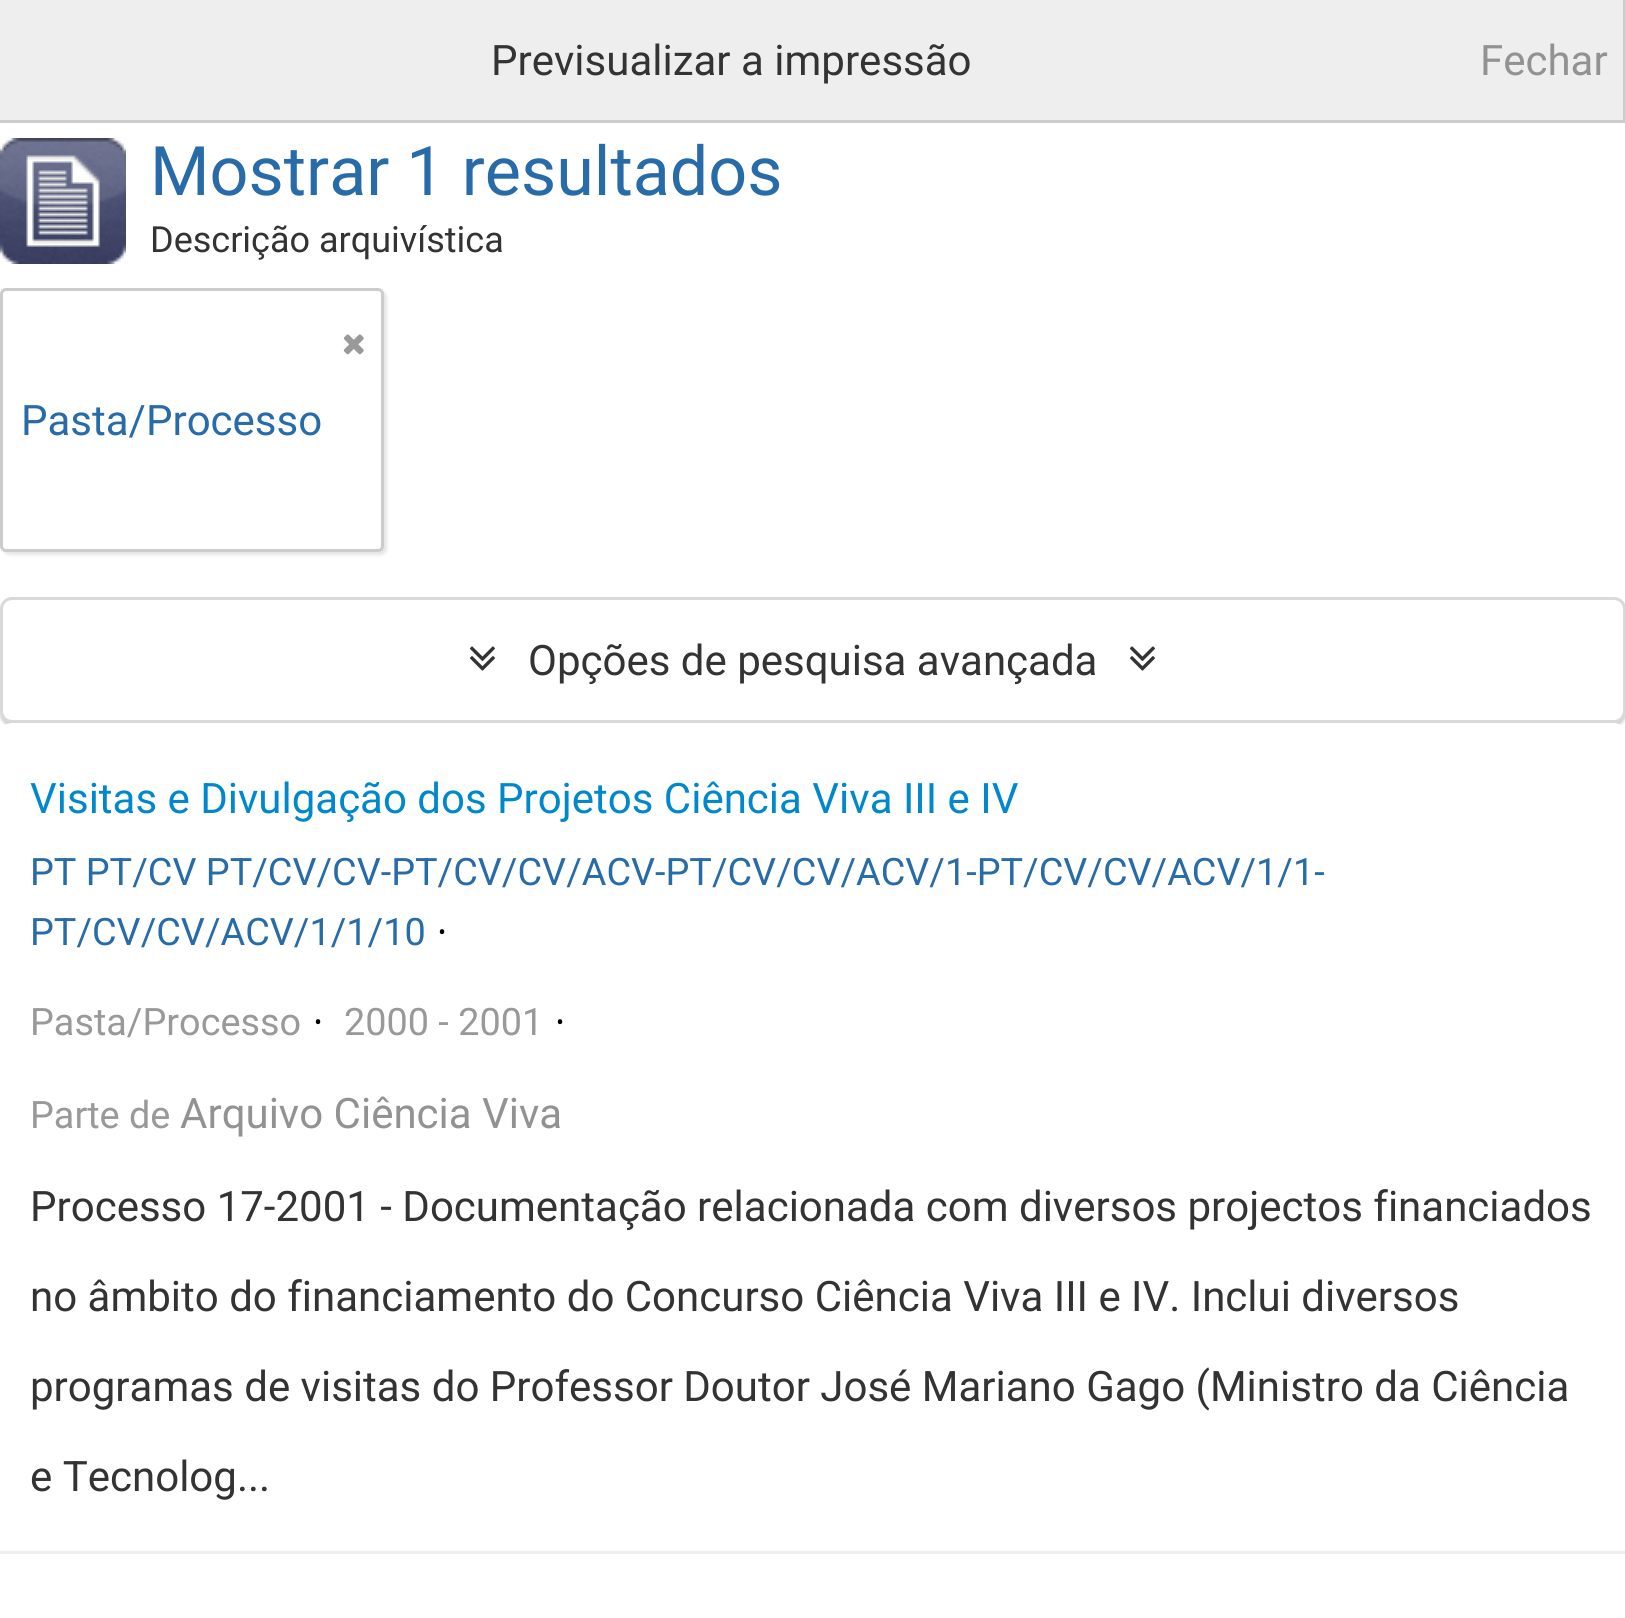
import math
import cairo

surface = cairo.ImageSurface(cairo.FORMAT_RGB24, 1625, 1618)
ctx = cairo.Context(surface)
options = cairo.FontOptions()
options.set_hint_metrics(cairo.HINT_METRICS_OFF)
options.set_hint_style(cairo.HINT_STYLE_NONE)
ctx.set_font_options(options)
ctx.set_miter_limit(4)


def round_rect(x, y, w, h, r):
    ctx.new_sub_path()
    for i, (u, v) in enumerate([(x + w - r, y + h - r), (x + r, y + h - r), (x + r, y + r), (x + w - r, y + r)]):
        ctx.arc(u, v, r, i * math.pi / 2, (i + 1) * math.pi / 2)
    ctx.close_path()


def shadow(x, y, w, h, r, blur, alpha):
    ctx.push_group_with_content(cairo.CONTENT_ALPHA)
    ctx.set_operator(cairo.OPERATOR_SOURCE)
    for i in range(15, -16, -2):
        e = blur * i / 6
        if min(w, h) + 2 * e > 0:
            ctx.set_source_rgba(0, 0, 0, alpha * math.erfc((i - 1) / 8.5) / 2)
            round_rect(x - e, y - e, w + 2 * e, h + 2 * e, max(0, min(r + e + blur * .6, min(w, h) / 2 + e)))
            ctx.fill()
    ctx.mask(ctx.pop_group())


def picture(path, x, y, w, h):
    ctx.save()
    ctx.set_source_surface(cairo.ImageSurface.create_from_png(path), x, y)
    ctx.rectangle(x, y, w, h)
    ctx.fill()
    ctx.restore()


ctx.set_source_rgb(1, 1, 1)
ctx.paint()
ctx.set_source_rgb(0.933, 0.933, 0.933)
ctx.rectangle(0, 0, 1623, 120)
ctx.fill()
ctx.set_source_rgb(0.8, 0.8, 0.8)
ctx.rectangle(1623, 0, 2, 123)
ctx.fill()
ctx.rectangle(0, 120, 1625, 3)
ctx.fill()
ctx.select_font_face("Roboto")
ctx.set_font_size(42)
ctx.set_source_rgb(0.2, 0.2, 0.2)
ctx.move_to(491, 75)
ctx.show_text("Previsualizar a impressão")
ctx.set_source_rgb(0.573, 0.573, 0.573)
ctx.move_to(1480, 75)
ctx.show_text("Fechar")
picture("img1.png", 0, 138, 126, 126)
ctx.set_font_size(68.25)
ctx.set_source_rgb(0.157, 0.42, 0.663)
ctx.move_to(150, 195)
ctx.show_text("Mostrar 1 resultados")
ctx.set_font_size(36)
ctx.set_source_rgb(0.2, 0.2, 0.2)
ctx.move_to(150, 252)
ctx.show_text("Descrição arquivística")
ctx.set_source_rgb(0, 0, 0)
shadow(3, 291, 384, 264, 6, 1.5, 0.1)
ctx.set_source_rgb(1, 1, 1)
round_rect(1.5, 289.5, 381, 261, 4.5)
ctx.fill_preserve()
ctx.set_source_rgb(0.8, 0.8, 0.8)
ctx.set_line_width(3)
ctx.stroke()
picture("img2.png", 343, 334, 21, 21)
ctx.set_font_size(42)
ctx.set_source_rgb(0.157, 0.42, 0.663)
ctx.move_to(21, 435)
ctx.show_text("Pasta/Processo")
ctx.set_source_rgb(0, 0, 0)
shadow(0, 600, 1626, 126, 12, 1.5, 0.2)
ctx.set_source_rgb(1, 1, 1)
round_rect(1.5, 598.5, 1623, 123, 10.5)
ctx.fill_preserve()
ctx.set_source_rgb(0.851, 0.851, 0.851)
ctx.stroke()
picture("img3.png", 470, 646, 25, 25)
ctx.set_source_rgb(0.2, 0.2, 0.2)
ctx.move_to(528, 675)
ctx.show_text("Opções de pesquisa avançada")
picture("img3.png", 1130, 646, 25, 25)
ctx.set_source_rgb(1, 1, 1)
round_rect(0, 723, 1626, 831, 12)
ctx.fill()
ctx.set_source_rgb(0.933, 0.933, 0.933)
ctx.rectangle(0, 1551, 1625, 3)
ctx.fill()
ctx.set_source_rgb(0, 0.533, 0.8)
ctx.move_to(30, 813)
ctx.show_text("Visitas e Divulgação dos Projetos Ciência Viva III e IV")
ctx.set_font_size(37.8)
ctx.set_source_rgb(0.157, 0.42, 0.663)
ctx.move_to(30, 885)
ctx.show_text("PT PT/CV PT/CV/CV-PT/CV/CV/ACV-PT/CV/CV/ACV/1-PT/CV/CV/ACV/1/1-")
ctx.move_to(30, 945)
ctx.show_text("PT/CV/CV/ACV/1/1/10")
ctx.select_font_face("Open Sans")
ctx.set_source_rgb(0, 0, 0)
ctx.move_to(437, 945)
ctx.show_text("·")
ctx.select_font_face("Roboto")
ctx.set_source_rgb(0.6, 0.6, 0.6)
ctx.move_to(30, 1035)
ctx.show_text("Pasta/Processo")
ctx.select_font_face("Open Sans")
ctx.set_source_rgb(0, 0, 0)
ctx.move_to(313, 1035)
ctx.show_text("·")
ctx.select_font_face("Roboto")
ctx.set_source_rgb(0.6, 0.6, 0.6)
ctx.move_to(344, 1035)
ctx.show_text("2000 - 2001")
ctx.select_font_face("Open Sans")
ctx.set_source_rgb(0, 0, 0)
ctx.move_to(555, 1035)
ctx.show_text("·")
ctx.select_font_face("Roboto")
ctx.set_source_rgb(0.6, 0.6, 0.6)
ctx.move_to(30, 1128)
ctx.show_text("Parte de")
ctx.set_font_size(42)
ctx.set_source_rgb(0.573, 0.573, 0.573)
ctx.move_to(180, 1128)
ctx.show_text("Arquivo Ciência Viva")
ctx.set_source_rgb(0.2, 0.2, 0.2)
ctx.move_to(30, 1221)
ctx.show_text("Processo 17-2001 - Documentação relacionada com diversos projectos financiados")
ctx.move_to(30, 1311)
ctx.show_text("no âmbito do financiamento do Concurso Ciência Viva III e IV. Inclui diversos")
ctx.move_to(30, 1401)
ctx.show_text("programas de visitas do Professor Doutor José Mariano Gago (Ministro da Ciência")
ctx.move_to(30, 1491)
ctx.show_text("e Tecnolog...")
surface.write_to_png("page.png")
